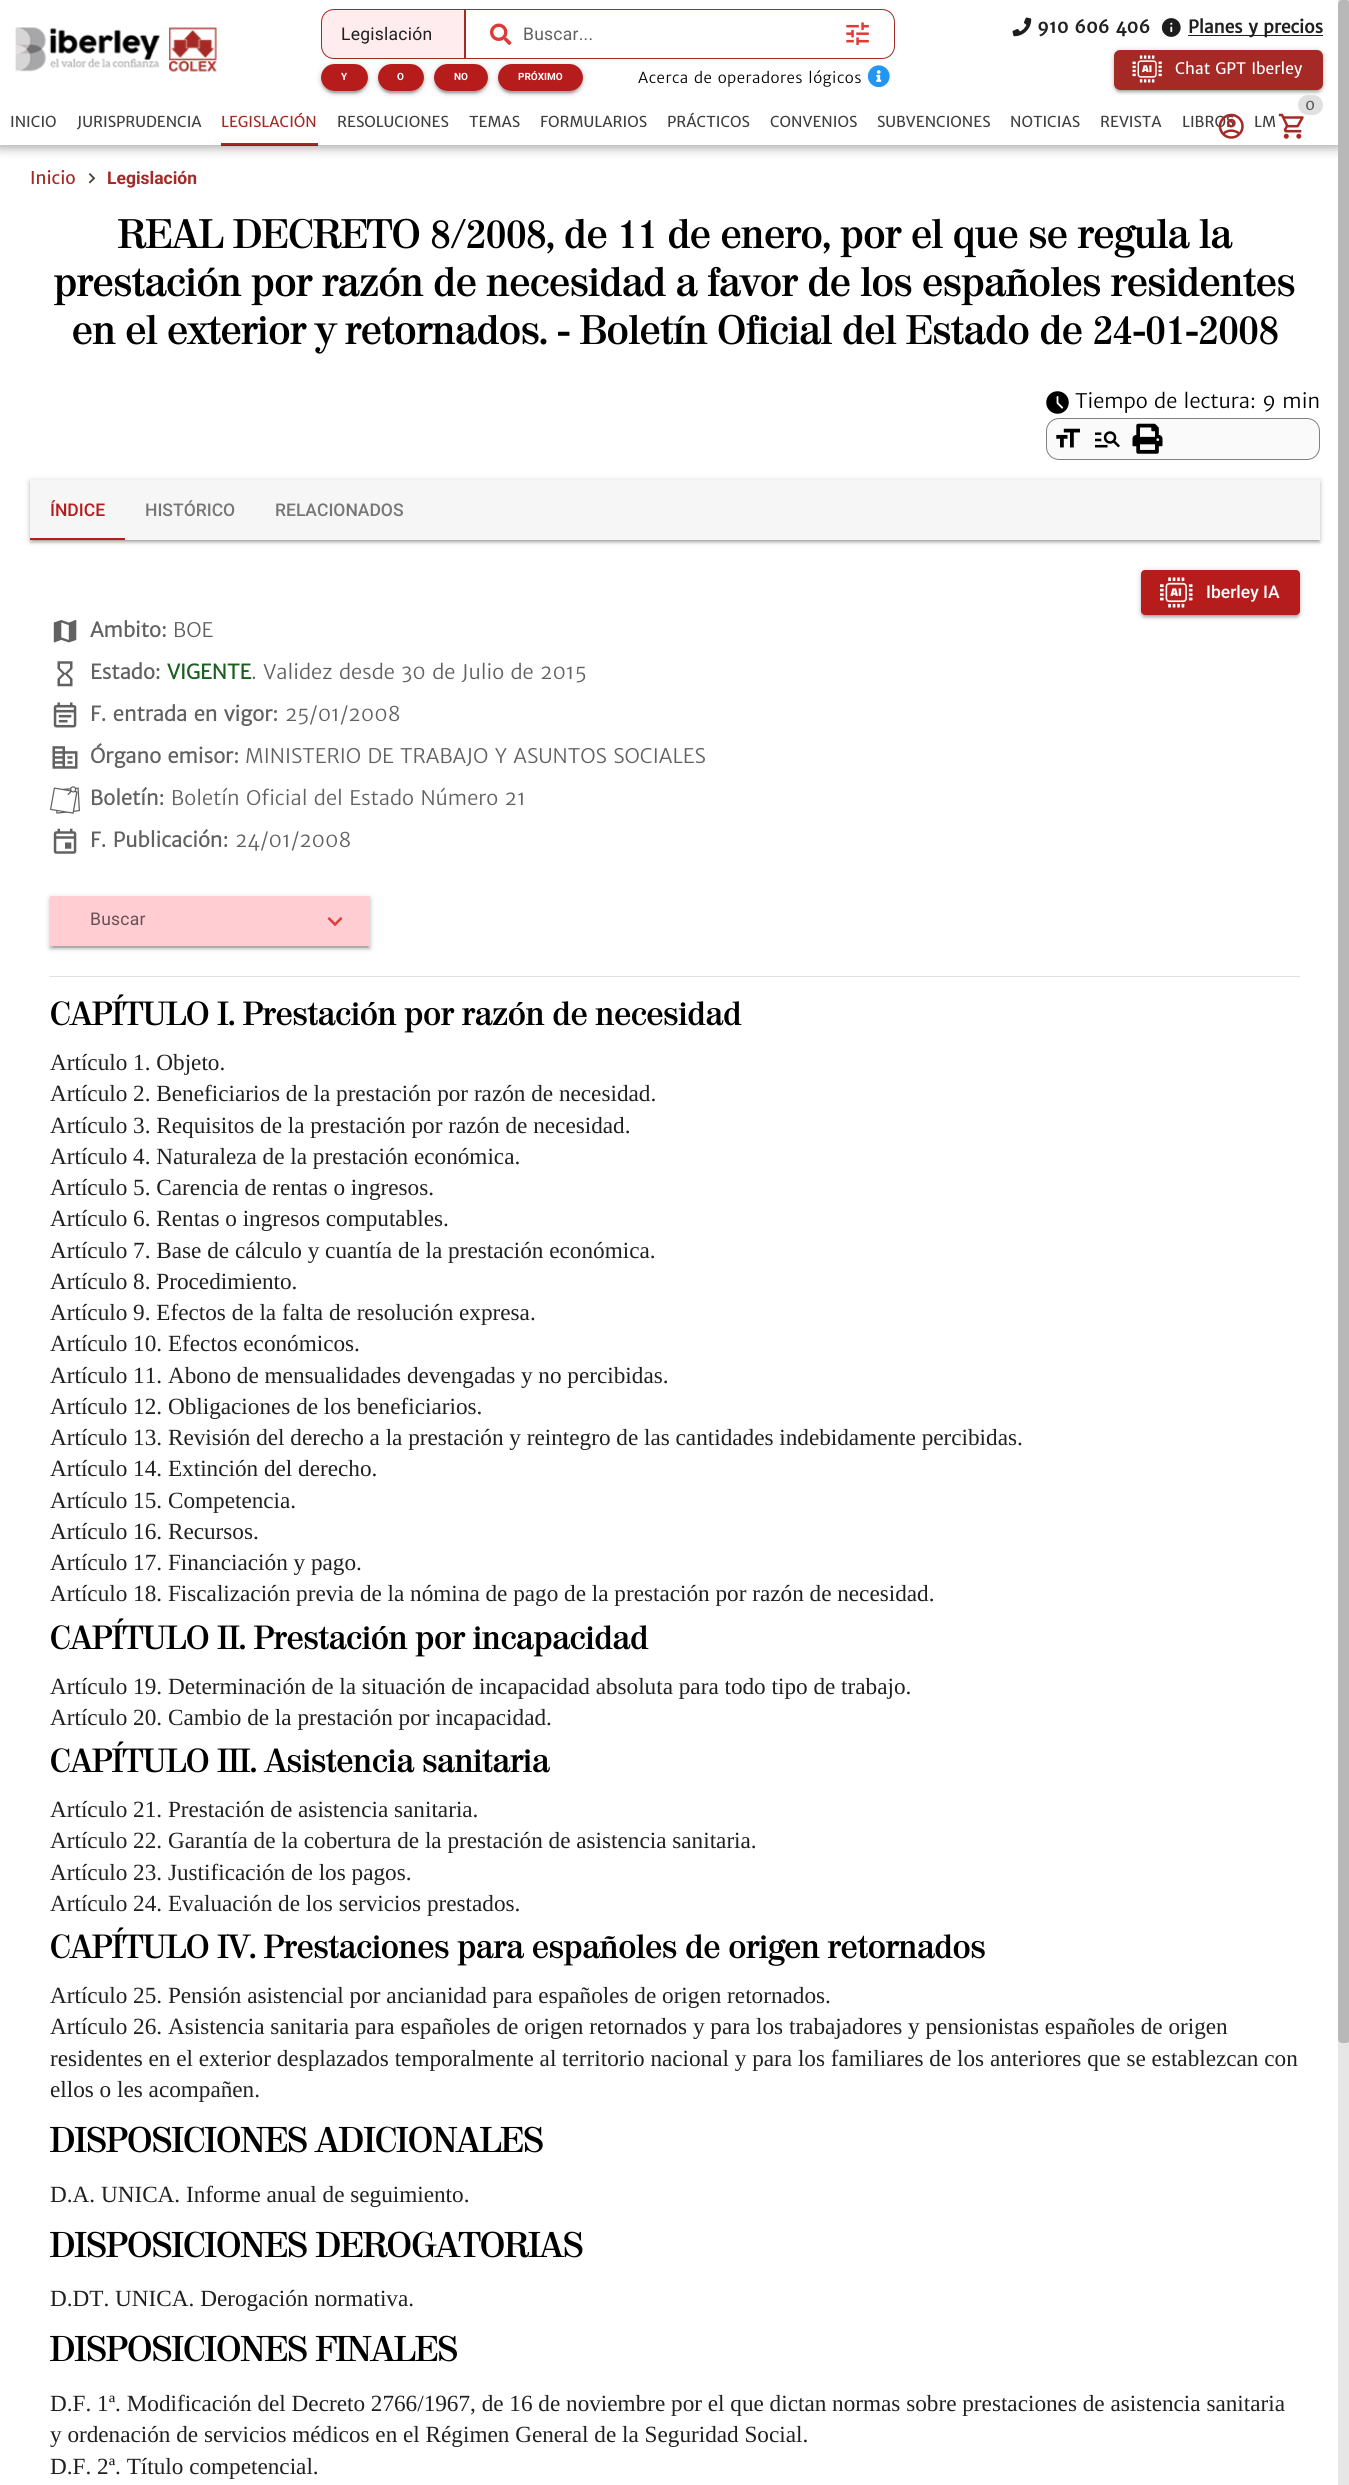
import math
import cairo

surface = cairo.ImageSurface(cairo.FORMAT_RGB24, 1349, 2485)
ctx = cairo.Context(surface)
options = cairo.FontOptions()
options.set_hint_metrics(cairo.HINT_METRICS_OFF)
options.set_hint_style(cairo.HINT_STYLE_NONE)
ctx.set_font_options(options)
ctx.set_miter_limit(4)


def spaced_text(x, y, s, letter, word):
    ctx.move_to(x, y)
    for ch in s:
        ctx.show_text(ch)
        ctx.rel_move_to(letter + word * (ch == ' '), 0)


def round_rect(x, y, w, h, r):
    ctx.new_sub_path()
    for i, (u, v) in enumerate([(x + w - r, y + h - r), (x + r, y + h - r), (x + r, y + r), (x + w - r, y + r)]):
        ctx.arc(u, v, r, i * math.pi / 2, (i + 1) * math.pi / 2)
    ctx.close_path()


def shadow(x, y, w, h, r, blur, alpha):
    ctx.push_group_with_content(cairo.CONTENT_ALPHA)
    ctx.set_operator(cairo.OPERATOR_SOURCE)
    for i in range(15, -16, -2):
        e = blur * i / 6
        if min(w, h) + 2 * e > 0:
            ctx.set_source_rgba(0, 0, 0, alpha * math.erfc((i - 1) / 8.5) / 2)
            round_rect(x - e, y - e, w + 2 * e, h + 2 * e, max(0, min(r + e + blur * .6, min(w, h) / 2 + e)))
            ctx.fill()
    ctx.mask(ctx.pop_group())


def picture(path, x, y, w, h):
    ctx.save()
    ctx.set_source_surface(cairo.ImageSurface.create_from_png(path), x, y)
    ctx.rectangle(x, y, w, h)
    ctx.fill()
    ctx.restore()


ctx.set_source_rgb(1, 1, 1)
ctx.paint()
ctx.set_source_rgb(0.902, 0.902, 0.902)
ctx.rectangle(1338, 0, 11, 2485)
ctx.fill()
picture("img1.png", 15, 27, 202, 45)
ctx.set_source_rgb(1, 0.922, 0.933)
ctx.new_path()
ctx.move_to(334, 9.5)
ctx.line_to(464.5, 9.5)
ctx.line_to(464.5, 58.5)
ctx.line_to(334, 58.5)
ctx.curve_to(327, 58.5, 321.5, 53, 321.5, 46)
ctx.line_to(321.5, 22)
ctx.curve_to(321.5, 15, 327, 9.5, 334, 9.5)
ctx.close_path()
ctx.fill_preserve()
ctx.set_source_rgb(0.647, 0.161, 0.145)
ctx.set_line_width(1)
ctx.stroke()
ctx.new_path()
ctx.move_to(465.5, 9.5)
ctx.line_to(882, 9.5)
ctx.curve_to(889, 9.5, 894.5, 15, 894.5, 22)
ctx.line_to(894.5, 46)
ctx.curve_to(894.5, 53, 889, 58.5, 882, 58.5)
ctx.line_to(465.5, 58.5)
ctx.close_path()
ctx.stroke()
picture("img2.png", 490, 23, 22, 22)
picture("img3.png", 846, 22, 23, 23)
ctx.set_source_rgb(0.718, 0.11, 0.11)
round_rect(321, 64, 47, 27, 13.5)
ctx.fill()
round_rect(378, 64, 46, 27, 13.5)
ctx.fill()
round_rect(434, 64, 54, 27, 13.5)
ctx.fill()
round_rect(498, 64, 85, 27, 13.5)
ctx.fill()
picture("img4.png", 867, 65, 23, 23)
picture("img5.png", 1012, 17, 20, 20)
picture("img6.png", 1161, 18, 20, 19)
ctx.set_source_rgb(0.114, 0.114, 0.114)
ctx.rectangle(1188, 35, 135, 1)
ctx.fill()
ctx.set_source_rgb(0.647, 0.161, 0.145)
round_rect(1114, 50, 209, 40, 6)
ctx.fill()
ctx.save()
ctx.set_fill_rule(cairo.FILL_RULE_EVEN_ODD)
ctx.new_path()
ctx.move_to(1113, 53)
ctx.line_to(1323, 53)
ctx.line_to(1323, 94)
ctx.line_to(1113, 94)
ctx.close_path()
ctx.move_to(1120, 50)
ctx.line_to(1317, 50)
ctx.curve_to(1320.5, 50, 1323, 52.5, 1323, 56)
ctx.line_to(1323, 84)
ctx.curve_to(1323, 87.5, 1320.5, 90, 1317, 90)
ctx.line_to(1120, 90)
ctx.curve_to(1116.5, 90, 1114, 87.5, 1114, 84)
ctx.line_to(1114, 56)
ctx.curve_to(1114, 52.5, 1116.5, 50, 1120, 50)
ctx.close_path()
ctx.clip()
ctx.set_source_rgb(0, 0, 0)
shadow(1116, 56, 204, 35, 4, 0.5, 0.12)
ctx.restore()
ctx.save()
ctx.set_fill_rule(cairo.FILL_RULE_EVEN_ODD)
ctx.new_path()
ctx.move_to(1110, 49)
ctx.line_to(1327, 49)
ctx.line_to(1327, 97)
ctx.line_to(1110, 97)
ctx.close_path()
ctx.move_to(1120, 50)
ctx.line_to(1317, 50)
ctx.curve_to(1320.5, 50, 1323, 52.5, 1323, 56)
ctx.line_to(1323, 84)
ctx.curve_to(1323, 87.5, 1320.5, 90, 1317, 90)
ctx.line_to(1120, 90)
ctx.curve_to(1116.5, 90, 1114, 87.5, 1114, 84)
ctx.line_to(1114, 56)
ctx.curve_to(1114, 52.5, 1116.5, 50, 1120, 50)
ctx.close_path()
ctx.clip()
ctx.set_source_rgb(0, 0, 0)
shadow(1114, 53, 209, 40, 6, 1, 0.14)
ctx.restore()
ctx.save()
ctx.set_fill_rule(cairo.FILL_RULE_EVEN_ODD)
ctx.new_path()
ctx.move_to(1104, 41)
ctx.line_to(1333, 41)
ctx.line_to(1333, 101)
ctx.line_to(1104, 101)
ctx.close_path()
ctx.move_to(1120, 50)
ctx.line_to(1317, 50)
ctx.curve_to(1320.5, 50, 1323, 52.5, 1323, 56)
ctx.line_to(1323, 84)
ctx.curve_to(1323, 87.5, 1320.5, 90, 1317, 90)
ctx.line_to(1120, 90)
ctx.curve_to(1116.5, 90, 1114, 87.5, 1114, 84)
ctx.line_to(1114, 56)
ctx.curve_to(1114, 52.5, 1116.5, 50, 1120, 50)
ctx.close_path()
ctx.clip()
ctx.set_source_rgb(0, 0, 0)
shadow(1114, 51, 209, 40, 6, 3, 0.2)
ctx.restore()
picture("img7.png", 1132, 55, 30, 28)
picture("img8.png", 1278, 113, 26, 26)
ctx.set_source_rgb(0.878, 0.878, 0.878)
round_rect(1298, 95, 25, 20, 10)
ctx.fill()
ctx.select_font_face("Merriweather Sans")
ctx.set_font_size(15)
ctx.set_source_rgb(0.247, 0.247, 0.247)
ctx.move_to(1182, 127)
ctx.show_text("LIBROS")
picture("img9.png", 1218, 113, 26, 26)
ctx.set_source_rgb(0.647, 0.161, 0.145)
ctx.rectangle(221, 143, 97, 3)
ctx.fill()
ctx.set_source_rgb(0.722, 0.722, 0.722)
round_rect(1338, 0, 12, 2043, 4)
ctx.fill()
ctx.save()
ctx.rectangle(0, 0, 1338, 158)
ctx.clip()
ctx.set_fill_rule(cairo.FILL_RULE_EVEN_ODD)
ctx.new_path()
ctx.move_to(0, 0)
ctx.line_to(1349, 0)
ctx.line_to(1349, 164)
ctx.line_to(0, 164)
ctx.close_path()
ctx.move_to(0, 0)
ctx.line_to(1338, 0)
ctx.line_to(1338, 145)
ctx.line_to(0, 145)
ctx.close_path()
ctx.clip()
ctx.set_source_rgb(0, 0, 0)
shadow(0, 0, 1338, 145, 0, 6, 0.24)
ctx.restore()
ctx.save()
ctx.rectangle(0, 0, 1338, 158)
ctx.clip()
ctx.set_fill_rule(cairo.FILL_RULE_EVEN_ODD)
ctx.new_path()
ctx.move_to(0, 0)
ctx.line_to(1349, 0)
ctx.line_to(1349, 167)
ctx.line_to(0, 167)
ctx.close_path()
ctx.move_to(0, 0)
ctx.line_to(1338, 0)
ctx.line_to(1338, 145)
ctx.line_to(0, 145)
ctx.close_path()
ctx.clip()
ctx.set_source_rgb(0, 0, 0)
shadow(-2, -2, 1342, 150, 0, 6, 0.2)
ctx.restore()
ctx.select_font_face("Roboto")
ctx.set_font_size(17.5)
ctx.set_source_rgb(0.125, 0.125, 0.125)
spaced_text(341, 40, "Legislación", 0.25, 0)
ctx.set_source_rgb(0.38, 0.38, 0.38)
spaced_text(523, 40, "Buscar...", 0.25, 0)
ctx.save()
ctx.set_fill_rule(cairo.FILL_RULE_EVEN_ODD)
ctx.new_path()
ctx.move_to(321, 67)
ctx.line_to(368, 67)
ctx.line_to(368, 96)
ctx.line_to(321, 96)
ctx.close_path()
ctx.move_to(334.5, 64)
ctx.line_to(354.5, 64)
ctx.curve_to(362, 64, 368, 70, 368, 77.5)
ctx.curve_to(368, 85, 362, 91, 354.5, 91)
ctx.line_to(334.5, 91)
ctx.curve_to(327, 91, 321, 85, 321, 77.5)
ctx.curve_to(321, 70, 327, 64, 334.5, 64)
ctx.close_path()
ctx.clip()
ctx.set_source_rgb(0, 0, 0)
shadow(324, 70, 41, 23, 11.5, 0.5, 0.12)
ctx.restore()
ctx.save()
ctx.set_fill_rule(cairo.FILL_RULE_EVEN_ODD)
ctx.new_path()
ctx.move_to(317, 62)
ctx.line_to(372, 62)
ctx.line_to(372, 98)
ctx.line_to(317, 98)
ctx.close_path()
ctx.move_to(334.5, 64)
ctx.line_to(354.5, 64)
ctx.curve_to(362, 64, 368, 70, 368, 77.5)
ctx.curve_to(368, 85, 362, 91, 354.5, 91)
ctx.line_to(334.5, 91)
ctx.curve_to(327, 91, 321, 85, 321, 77.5)
ctx.curve_to(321, 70, 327, 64, 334.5, 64)
ctx.close_path()
ctx.clip()
ctx.set_source_rgb(0, 0, 0)
shadow(321, 66, 47, 28, 14, 1, 0.14)
ctx.restore()
ctx.save()
ctx.set_fill_rule(cairo.FILL_RULE_EVEN_ODD)
ctx.new_path()
ctx.move_to(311, 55)
ctx.line_to(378, 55)
ctx.line_to(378, 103)
ctx.line_to(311, 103)
ctx.close_path()
ctx.move_to(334.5, 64)
ctx.line_to(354.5, 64)
ctx.curve_to(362, 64, 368, 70, 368, 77.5)
ctx.curve_to(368, 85, 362, 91, 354.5, 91)
ctx.line_to(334.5, 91)
ctx.curve_to(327, 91, 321, 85, 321, 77.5)
ctx.curve_to(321, 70, 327, 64, 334.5, 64)
ctx.close_path()
ctx.clip()
ctx.set_source_rgb(0, 0, 0)
shadow(321, 65, 47, 28, 14, 3, 0.2)
ctx.restore()
ctx.select_font_face("Roboto", cairo.FONT_SLANT_NORMAL, cairo.FONT_WEIGHT_BOLD)
ctx.set_font_size(10)
ctx.set_source_rgb(1, 1, 1)
ctx.move_to(341, 80)
ctx.show_text("Y")
ctx.save()
ctx.set_fill_rule(cairo.FILL_RULE_EVEN_ODD)
ctx.new_path()
ctx.move_to(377, 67)
ctx.line_to(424, 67)
ctx.line_to(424, 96)
ctx.line_to(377, 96)
ctx.close_path()
ctx.move_to(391.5, 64)
ctx.line_to(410.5, 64)
ctx.curve_to(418, 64, 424, 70, 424, 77.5)
ctx.curve_to(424, 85, 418, 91, 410.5, 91)
ctx.line_to(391.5, 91)
ctx.curve_to(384, 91, 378, 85, 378, 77.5)
ctx.curve_to(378, 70, 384, 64, 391.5, 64)
ctx.close_path()
ctx.clip()
ctx.set_source_rgb(0, 0, 0)
shadow(380, 70, 41, 23, 11.5, 0.5, 0.12)
ctx.restore()
ctx.save()
ctx.set_fill_rule(cairo.FILL_RULE_EVEN_ODD)
ctx.new_path()
ctx.move_to(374, 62)
ctx.line_to(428, 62)
ctx.line_to(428, 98)
ctx.line_to(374, 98)
ctx.close_path()
ctx.move_to(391.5, 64)
ctx.line_to(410.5, 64)
ctx.curve_to(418, 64, 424, 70, 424, 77.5)
ctx.curve_to(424, 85, 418, 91, 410.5, 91)
ctx.line_to(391.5, 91)
ctx.curve_to(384, 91, 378, 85, 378, 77.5)
ctx.curve_to(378, 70, 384, 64, 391.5, 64)
ctx.close_path()
ctx.clip()
ctx.set_source_rgb(0, 0, 0)
shadow(378, 66, 46, 28, 14, 1, 0.14)
ctx.restore()
ctx.save()
ctx.set_fill_rule(cairo.FILL_RULE_EVEN_ODD)
ctx.new_path()
ctx.move_to(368, 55)
ctx.line_to(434, 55)
ctx.line_to(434, 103)
ctx.line_to(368, 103)
ctx.close_path()
ctx.move_to(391.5, 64)
ctx.line_to(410.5, 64)
ctx.curve_to(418, 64, 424, 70, 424, 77.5)
ctx.curve_to(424, 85, 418, 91, 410.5, 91)
ctx.line_to(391.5, 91)
ctx.curve_to(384, 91, 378, 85, 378, 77.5)
ctx.curve_to(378, 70, 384, 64, 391.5, 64)
ctx.close_path()
ctx.clip()
ctx.set_source_rgb(0, 0, 0)
shadow(378, 65, 46, 28, 14, 3, 0.2)
ctx.restore()
ctx.move_to(397, 80)
ctx.show_text("O")
ctx.save()
ctx.set_fill_rule(cairo.FILL_RULE_EVEN_ODD)
ctx.new_path()
ctx.move_to(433, 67)
ctx.line_to(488, 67)
ctx.line_to(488, 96)
ctx.line_to(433, 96)
ctx.close_path()
ctx.move_to(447.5, 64)
ctx.line_to(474.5, 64)
ctx.curve_to(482, 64, 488, 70, 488, 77.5)
ctx.curve_to(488, 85, 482, 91, 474.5, 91)
ctx.line_to(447.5, 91)
ctx.curve_to(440, 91, 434, 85, 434, 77.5)
ctx.curve_to(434, 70, 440, 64, 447.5, 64)
ctx.close_path()
ctx.clip()
ctx.set_source_rgb(0, 0, 0)
shadow(436, 70, 49, 23, 11.5, 0.5, 0.12)
ctx.restore()
ctx.save()
ctx.set_fill_rule(cairo.FILL_RULE_EVEN_ODD)
ctx.new_path()
ctx.move_to(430, 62)
ctx.line_to(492, 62)
ctx.line_to(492, 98)
ctx.line_to(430, 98)
ctx.close_path()
ctx.move_to(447.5, 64)
ctx.line_to(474.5, 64)
ctx.curve_to(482, 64, 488, 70, 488, 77.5)
ctx.curve_to(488, 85, 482, 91, 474.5, 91)
ctx.line_to(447.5, 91)
ctx.curve_to(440, 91, 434, 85, 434, 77.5)
ctx.curve_to(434, 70, 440, 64, 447.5, 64)
ctx.close_path()
ctx.clip()
ctx.set_source_rgb(0, 0, 0)
shadow(434, 66, 54, 28, 14, 1, 0.14)
ctx.restore()
ctx.save()
ctx.set_fill_rule(cairo.FILL_RULE_EVEN_ODD)
ctx.new_path()
ctx.move_to(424, 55)
ctx.line_to(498, 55)
ctx.line_to(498, 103)
ctx.line_to(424, 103)
ctx.close_path()
ctx.move_to(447.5, 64)
ctx.line_to(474.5, 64)
ctx.curve_to(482, 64, 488, 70, 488, 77.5)
ctx.curve_to(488, 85, 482, 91, 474.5, 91)
ctx.line_to(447.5, 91)
ctx.curve_to(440, 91, 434, 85, 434, 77.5)
ctx.curve_to(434, 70, 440, 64, 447.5, 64)
ctx.close_path()
ctx.clip()
ctx.set_source_rgb(0, 0, 0)
shadow(434, 65, 54, 28, 14, 3, 0.2)
ctx.restore()
ctx.move_to(454, 80)
ctx.show_text("NO")
ctx.save()
ctx.set_fill_rule(cairo.FILL_RULE_EVEN_ODD)
ctx.new_path()
ctx.move_to(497, 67)
ctx.line_to(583, 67)
ctx.line_to(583, 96)
ctx.line_to(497, 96)
ctx.close_path()
ctx.move_to(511.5, 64)
ctx.line_to(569.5, 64)
ctx.curve_to(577, 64, 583, 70, 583, 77.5)
ctx.curve_to(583, 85, 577, 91, 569.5, 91)
ctx.line_to(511.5, 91)
ctx.curve_to(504, 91, 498, 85, 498, 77.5)
ctx.curve_to(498, 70, 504, 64, 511.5, 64)
ctx.close_path()
ctx.clip()
ctx.set_source_rgb(0, 0, 0)
shadow(500, 70, 80, 23, 11.5, 0.5, 0.12)
ctx.restore()
ctx.save()
ctx.set_fill_rule(cairo.FILL_RULE_EVEN_ODD)
ctx.new_path()
ctx.move_to(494, 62)
ctx.line_to(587, 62)
ctx.line_to(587, 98)
ctx.line_to(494, 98)
ctx.close_path()
ctx.move_to(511.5, 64)
ctx.line_to(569.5, 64)
ctx.curve_to(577, 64, 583, 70, 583, 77.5)
ctx.curve_to(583, 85, 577, 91, 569.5, 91)
ctx.line_to(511.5, 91)
ctx.curve_to(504, 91, 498, 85, 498, 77.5)
ctx.curve_to(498, 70, 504, 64, 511.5, 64)
ctx.close_path()
ctx.clip()
ctx.set_source_rgb(0, 0, 0)
shadow(498, 66, 85, 28, 14, 1, 0.14)
ctx.restore()
ctx.save()
ctx.set_fill_rule(cairo.FILL_RULE_EVEN_ODD)
ctx.new_path()
ctx.move_to(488, 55)
ctx.line_to(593, 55)
ctx.line_to(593, 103)
ctx.line_to(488, 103)
ctx.close_path()
ctx.move_to(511.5, 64)
ctx.line_to(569.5, 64)
ctx.curve_to(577, 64, 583, 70, 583, 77.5)
ctx.curve_to(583, 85, 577, 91, 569.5, 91)
ctx.line_to(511.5, 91)
ctx.curve_to(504, 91, 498, 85, 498, 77.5)
ctx.curve_to(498, 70, 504, 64, 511.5, 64)
ctx.close_path()
ctx.clip()
ctx.set_source_rgb(0, 0, 0)
shadow(498, 65, 85, 28, 14, 3, 0.2)
ctx.restore()
ctx.move_to(518, 80)
ctx.show_text("PRÓXIMO")
ctx.select_font_face("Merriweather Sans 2")
ctx.set_font_size(15)
ctx.set_source_rgb(0, 0, 0)
spaced_text(638, 83, "Acerca de operadores lógicos", 0.5, 0)
ctx.select_font_face("Merriweather Sans 2", cairo.FONT_SLANT_NORMAL, cairo.FONT_WEIGHT_BOLD)
ctx.set_font_size(17.5)
ctx.set_source_rgb(0.125, 0.125, 0.125)
ctx.move_to(1037, 33)
ctx.show_text("910 606 406")
ctx.move_to(1188, 33)
ctx.show_text("Planes y precios")
ctx.select_font_face("Merriweather Sans")
ctx.set_font_size(15.75)
ctx.set_source_rgb(1, 1, 1)
ctx.move_to(1175, 74)
ctx.show_text("Chat GPT Iberley")
ctx.set_font_size(15)
ctx.set_source_rgb(0.38, 0.38, 0.38)
ctx.move_to(1305, 110)
ctx.show_text("0")
ctx.set_source_rgb(0.247, 0.247, 0.247)
ctx.move_to(10, 127)
ctx.show_text("INICIO")
ctx.move_to(77, 127)
ctx.show_text("JURISPRUDENCIA")
ctx.set_source_rgb(0.647, 0.161, 0.145)
ctx.move_to(221, 127)
ctx.show_text("LEGISLACIÓN")
ctx.set_source_rgb(0.247, 0.247, 0.247)
ctx.move_to(337, 127)
ctx.show_text("RESOLUCIONES")
ctx.move_to(469, 127)
ctx.show_text("TEMAS")
ctx.move_to(540, 127)
ctx.show_text("FORMULARIOS")
ctx.move_to(667, 127)
ctx.show_text("PRÁCTICOS")
ctx.move_to(770, 127)
ctx.show_text("CONVENIOS")
ctx.move_to(877, 127)
ctx.show_text("SUBVENCIONES")
ctx.move_to(1010, 127)
ctx.show_text("NOTICIAS")
ctx.move_to(1100, 127)
ctx.show_text("REVISTA")
ctx.move_to(1254, 127)
ctx.show_text("LM")
ctx.set_font_size(17.5)
ctx.set_source_rgb(0.647, 0.161, 0.145)
ctx.move_to(30, 184)
ctx.show_text("Inicio")
picture("img10.png", 88, 173, 8, 11)
ctx.select_font_face("Roboto", cairo.FONT_SLANT_NORMAL, cairo.FONT_WEIGHT_BOLD)
ctx.move_to(107, 184)
ctx.show_text("Legislación")
ctx.select_font_face("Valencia", cairo.FONT_SLANT_NORMAL, cairo.FONT_WEIGHT_BOLD)
ctx.set_font_size(40)
ctx.set_source_rgb(0, 0, 0)
ctx.move_to(118, 248)
ctx.show_text("REAL DECRETO 8/2008, de 11 de enero, por el que se regula la")
ctx.move_to(54, 296)
ctx.show_text("prestación por razón de necesidad a favor de los españoles residentes")
ctx.move_to(72, 344)
ctx.show_text("en el exterior y retornados. - Boletín Oficial del Estado de 24-01-2008")
picture("img11.png", 1046, 391, 23, 23)
ctx.select_font_face("Merriweather Sans 2")
ctx.set_font_size(20)
ctx.move_to(1075, 408)
ctx.show_text("Tiempo de lectura: 9 min")
ctx.set_source_rgb(0.98, 0.98, 0.98)
round_rect(1046.5, 418.5, 273, 41, 12.5)
ctx.fill_preserve()
ctx.set_source_rgb(0.502, 0.502, 0.502)
ctx.stroke()
picture("img12.png", 1056, 428, 24, 20)
picture("img13.png", 1095, 431, 25, 17)
picture("img14.png", 1132, 423, 31, 31)
ctx.set_source_rgb(0, 0, 0)
shadow(33, 486, 1285, 55, 0, 0.5, 0.12)
shadow(30, 483, 1290, 60, 0, 1, 0.14)
shadow(30, 481, 1290, 60, 0, 3, 0.2)
ctx.set_source_rgb(0.961, 0.961, 0.961)
ctx.rectangle(30, 480, 1290, 60)
ctx.fill()
ctx.select_font_face("Roboto Medium")
ctx.set_font_size(17.5)
ctx.set_source_rgb(0.718, 0.11, 0.11)
ctx.move_to(50, 516)
ctx.show_text("ÍNDICE")
ctx.rectangle(30, 538, 95, 2)
ctx.fill()
ctx.set_source_rgb(0.467, 0.467, 0.467)
ctx.move_to(145, 516)
ctx.show_text("HISTÓRICO")
ctx.move_to(275, 516)
ctx.show_text("RELACIONADOS")
ctx.set_source_rgb(0.718, 0.11, 0.11)
round_rect(1141, 570, 159, 45, 4)
ctx.fill()
ctx.save()
ctx.set_fill_rule(cairo.FILL_RULE_EVEN_ODD)
ctx.new_path()
ctx.move_to(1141, 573)
ctx.line_to(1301, 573)
ctx.line_to(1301, 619)
ctx.line_to(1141, 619)
ctx.close_path()
ctx.move_to(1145, 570)
ctx.line_to(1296, 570)
ctx.curve_to(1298, 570, 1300, 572, 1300, 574)
ctx.line_to(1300, 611)
ctx.curve_to(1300, 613, 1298, 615, 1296, 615)
ctx.line_to(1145, 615)
ctx.curve_to(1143, 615, 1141, 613, 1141, 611)
ctx.line_to(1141, 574)
ctx.curve_to(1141, 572, 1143, 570, 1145, 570)
ctx.close_path()
ctx.clip()
ctx.set_source_rgb(0, 0, 0)
shadow(1144, 576, 154, 40, 1, 0.5, 0.12)
ctx.restore()
ctx.save()
ctx.set_fill_rule(cairo.FILL_RULE_EVEN_ODD)
ctx.new_path()
ctx.move_to(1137, 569)
ctx.line_to(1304, 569)
ctx.line_to(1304, 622)
ctx.line_to(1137, 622)
ctx.close_path()
ctx.move_to(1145, 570)
ctx.line_to(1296, 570)
ctx.curve_to(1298, 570, 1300, 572, 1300, 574)
ctx.line_to(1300, 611)
ctx.curve_to(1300, 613, 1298, 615, 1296, 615)
ctx.line_to(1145, 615)
ctx.curve_to(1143, 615, 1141, 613, 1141, 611)
ctx.line_to(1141, 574)
ctx.curve_to(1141, 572, 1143, 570, 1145, 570)
ctx.close_path()
ctx.clip()
ctx.set_source_rgb(0, 0, 0)
shadow(1141, 573, 159, 45, 4, 1, 0.14)
ctx.restore()
ctx.save()
ctx.set_fill_rule(cairo.FILL_RULE_EVEN_ODD)
ctx.new_path()
ctx.move_to(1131, 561)
ctx.line_to(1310, 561)
ctx.line_to(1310, 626)
ctx.line_to(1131, 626)
ctx.close_path()
ctx.move_to(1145, 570)
ctx.line_to(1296, 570)
ctx.curve_to(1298, 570, 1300, 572, 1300, 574)
ctx.line_to(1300, 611)
ctx.curve_to(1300, 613, 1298, 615, 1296, 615)
ctx.line_to(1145, 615)
ctx.curve_to(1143, 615, 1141, 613, 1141, 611)
ctx.line_to(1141, 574)
ctx.curve_to(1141, 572, 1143, 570, 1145, 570)
ctx.close_path()
ctx.clip()
ctx.set_source_rgb(0, 0, 0)
shadow(1141, 571, 159, 45, 4, 3, 0.2)
ctx.restore()
picture("img15.png", 1160, 577, 33, 31)
ctx.set_source_rgb(1, 1, 1)
ctx.move_to(1206, 598)
ctx.show_text("Iberley IA")
picture("img16.png", 53, 620, 24, 23)
ctx.select_font_face("Merriweather Sans", cairo.FONT_SLANT_NORMAL, cairo.FONT_WEIGHT_BOLD)
ctx.set_font_size(20)
ctx.set_source_rgb(0.38, 0.38, 0.38)
ctx.move_to(90, 637)
ctx.show_text("Ambito:")
ctx.select_font_face("Merriweather Sans 2")
ctx.move_to(173, 637)
ctx.show_text("BOE")
picture("img17.png", 57, 661, 16, 26)
ctx.select_font_face("Merriweather Sans", cairo.FONT_SLANT_NORMAL, cairo.FONT_WEIGHT_BOLD)
ctx.move_to(90, 679)
ctx.show_text("Estado:")
ctx.set_source_rgb(0.106, 0.369, 0.125)
ctx.move_to(167, 679)
ctx.show_text("VIGENTE")
ctx.select_font_face("Merriweather Sans 2")
ctx.set_source_rgb(0.38, 0.38, 0.38)
ctx.move_to(251, 679)
ctx.show_text(". Validez desde 30 de Julio de 2015")
picture("img18.png", 53, 702, 24, 26)
ctx.select_font_face("Merriweather Sans", cairo.FONT_SLANT_NORMAL, cairo.FONT_WEIGHT_BOLD)
ctx.move_to(90, 721)
ctx.show_text("F. entrada en vigor:")
ctx.select_font_face("Merriweather Sans 2")
ctx.move_to(285, 721)
ctx.show_text("25/01/2008")
picture("img19.png", 52, 746, 26, 23)
ctx.select_font_face("Merriweather Sans", cairo.FONT_SLANT_NORMAL, cairo.FONT_WEIGHT_BOLD)
ctx.move_to(90, 763)
ctx.show_text("Órgano emisor:")
ctx.select_font_face("Merriweather Sans 2")
ctx.move_to(245, 763)
ctx.show_text("MINISTERIO DE TRABAJO Y ASUNTOS SOCIALES")
picture("img20.png", 50, 786, 30, 28)
ctx.select_font_face("Merriweather Sans", cairo.FONT_SLANT_NORMAL, cairo.FONT_WEIGHT_BOLD)
ctx.move_to(90, 805)
ctx.show_text("Boletín:")
ctx.select_font_face("Merriweather Sans 2")
ctx.move_to(171, 805)
ctx.show_text("Boletín Oficial del Estado Número 21")
picture("img21.png", 53, 828, 24, 26)
ctx.select_font_face("Merriweather Sans", cairo.FONT_SLANT_NORMAL, cairo.FONT_WEIGHT_BOLD)
ctx.move_to(90, 847)
ctx.show_text("F. Publicación:")
ctx.select_font_face("Merriweather Sans 2")
ctx.move_to(235, 847)
ctx.show_text("24/01/2008")
ctx.set_source_rgb(1, 0.804, 0.824)
ctx.rectangle(50, 896, 320, 50)
ctx.fill()
ctx.save()
ctx.rectangle(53, 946, 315, 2)
ctx.clip()
ctx.set_source_rgb(0, 0, 0)
shadow(53, 903, 315, 45, 0, 0.5, 0.12)
ctx.restore()
ctx.save()
ctx.set_fill_rule(cairo.FILL_RULE_EVEN_ODD)
ctx.new_path()
ctx.move_to(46, 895)
ctx.line_to(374, 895)
ctx.line_to(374, 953)
ctx.line_to(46, 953)
ctx.close_path()
ctx.move_to(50, 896)
ctx.line_to(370, 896)
ctx.line_to(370, 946)
ctx.line_to(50, 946)
ctx.close_path()
ctx.clip()
ctx.set_source_rgb(0, 0, 0)
shadow(50, 899, 320, 50, 0, 1, 0.14)
ctx.restore()
ctx.save()
ctx.set_fill_rule(cairo.FILL_RULE_EVEN_ODD)
ctx.new_path()
ctx.move_to(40, 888)
ctx.line_to(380, 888)
ctx.line_to(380, 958)
ctx.line_to(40, 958)
ctx.close_path()
ctx.move_to(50, 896)
ctx.line_to(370, 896)
ctx.line_to(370, 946)
ctx.line_to(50, 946)
ctx.close_path()
ctx.clip()
ctx.set_source_rgb(0, 0, 0)
shadow(50, 898, 320, 50, 0, 3, 0.2)
ctx.restore()
ctx.select_font_face("Roboto")
ctx.set_font_size(17.5)
ctx.set_source_rgb(0.4, 0.322, 0.329)
spaced_text(90, 925, "Buscar", 0.25, 0)
picture("img22.png", 327, 917, 16, 10)
ctx.set_source_rgb(0.878, 0.878, 0.878)
ctx.rectangle(50, 976, 1250, 1)
ctx.fill()
ctx.select_font_face("Valencia", cairo.FONT_SLANT_NORMAL, cairo.FONT_WEIGHT_BOLD)
ctx.set_font_size(32.5)
ctx.set_source_rgb(0, 0, 0)
ctx.move_to(50, 1025)
ctx.show_text("CAPÍTULO I. Prestación por razón de necesidad")
ctx.select_font_face("Liberation Serif")
ctx.set_font_size(23.2)
ctx.set_source_rgb(0.125, 0.125, 0.125)
ctx.move_to(50, 1070)
ctx.show_text("Artículo 1. Objeto.")
ctx.move_to(50, 1101)
ctx.show_text("Artículo 2. Beneficiarios de la prestación por razón de necesidad.")
ctx.move_to(50, 1133)
ctx.show_text("Artículo 3. Requisitos de la prestación por razón de necesidad.")
ctx.move_to(50, 1164)
ctx.show_text("Artículo 4. Naturaleza de la prestación económica.")
ctx.move_to(50, 1195)
ctx.show_text("Artículo 5. Carencia de rentas o ingresos.")
ctx.move_to(50, 1226)
ctx.show_text("Artículo 6. Rentas o ingresos computables.")
ctx.move_to(50, 1258)
ctx.show_text("Artículo 7. Base de cálculo y cuantía de la prestación económica.")
ctx.move_to(50, 1289)
ctx.show_text("Artículo 8. Procedimiento.")
ctx.move_to(50, 1320)
ctx.show_text("Artículo 9. Efectos de la falta de resolución expresa.")
ctx.move_to(50, 1351)
ctx.show_text("Artículo 10. Efectos económicos.")
ctx.move_to(50, 1383)
ctx.show_text("Artículo 11. Abono de mensualidades devengadas y no percibidas.")
ctx.move_to(50, 1414)
ctx.show_text("Artículo 12. Obligaciones de los beneficiarios.")
ctx.move_to(50, 1445)
ctx.show_text("Artículo 13. Revisión del derecho a la prestación y reintegro de las cantidades indebidamente percibidas.")
ctx.move_to(50, 1476)
ctx.show_text("Artículo 14. Extinción del derecho.")
ctx.move_to(50, 1508)
ctx.show_text("Artículo 15. Competencia.")
ctx.move_to(50, 1539)
ctx.show_text("Artículo 16. Recursos.")
ctx.move_to(50, 1570)
ctx.show_text("Artículo 17. Financiación y pago.")
ctx.move_to(50, 1601)
ctx.show_text("Artículo 18. Fiscalización previa de la nómina de pago de la prestación por razón de necesidad.")
ctx.select_font_face("Valencia", cairo.FONT_SLANT_NORMAL, cairo.FONT_WEIGHT_BOLD)
ctx.set_font_size(32.5)
ctx.set_source_rgb(0, 0, 0)
ctx.move_to(50, 1649)
ctx.show_text("CAPÍTULO II. Prestación por incapacidad")
ctx.select_font_face("Liberation Serif")
ctx.set_font_size(23.2)
ctx.set_source_rgb(0.125, 0.125, 0.125)
ctx.move_to(50, 1694)
ctx.show_text("Artículo 19. Determinación de la situación de incapacidad absoluta para todo tipo de trabajo.")
ctx.move_to(50, 1725)
ctx.show_text("Artículo 20. Cambio de la prestación por incapacidad.")
ctx.select_font_face("Valencia", cairo.FONT_SLANT_NORMAL, cairo.FONT_WEIGHT_BOLD)
ctx.set_font_size(32.5)
ctx.set_source_rgb(0, 0, 0)
ctx.move_to(50, 1772)
ctx.show_text("CAPÍTULO III. Asistencia sanitaria")
ctx.select_font_face("Liberation Serif")
ctx.set_font_size(23.2)
ctx.set_source_rgb(0.125, 0.125, 0.125)
ctx.move_to(50, 1817)
ctx.show_text("Artículo 21. Prestación de asistencia sanitaria.")
ctx.move_to(50, 1848)
ctx.show_text("Artículo 22. Garantía de la cobertura de la prestación de asistencia sanitaria.")
ctx.move_to(50, 1880)
ctx.show_text("Artículo 23. Justificación de los pagos.")
ctx.move_to(50, 1911)
ctx.show_text("Artículo 24. Evaluación de los servicios prestados.")
ctx.select_font_face("Valencia", cairo.FONT_SLANT_NORMAL, cairo.FONT_WEIGHT_BOLD)
ctx.set_font_size(32.5)
ctx.set_source_rgb(0, 0, 0)
ctx.move_to(50, 1958)
ctx.show_text("CAPÍTULO IV. Prestaciones para españoles de origen retornados")
ctx.select_font_face("Liberation Serif")
ctx.set_font_size(23.2)
ctx.set_source_rgb(0.125, 0.125, 0.125)
ctx.move_to(50, 2003)
ctx.show_text("Artículo 25. Pensión asistencial por ancianidad para españoles de origen retornados.")
ctx.move_to(50, 2034)
ctx.show_text("Artículo 26. Asistencia sanitaria para españoles de origen retornados y para los trabajadores y pensionistas españoles de origen")
ctx.move_to(50, 2066)
ctx.show_text("residentes en el exterior desplazados temporalmente al territorio nacional y para los familiares de los anteriores que se establezcan con")
ctx.move_to(50, 2097)
ctx.show_text("ellos o les acompañen.")
ctx.select_font_face("Valencia", cairo.FONT_SLANT_NORMAL, cairo.FONT_WEIGHT_BOLD)
ctx.set_font_size(34.75)
ctx.set_source_rgb(0, 0, 0)
spaced_text(50, 2152, "DISPOSICIONES ADICIONALES", -0.3, 0)
ctx.select_font_face("Liberation Serif")
ctx.set_font_size(23.2)
ctx.set_source_rgb(0.125, 0.125, 0.125)
ctx.move_to(50, 2202)
ctx.show_text("D.A. UNICA. Informe anual de seguimiento.")
ctx.select_font_face("Valencia", cairo.FONT_SLANT_NORMAL, cairo.FONT_WEIGHT_BOLD)
ctx.set_font_size(34.75)
ctx.set_source_rgb(0, 0, 0)
spaced_text(50, 2257, "DISPOSICIONES DEROGATORIAS", -0.3, 0)
ctx.select_font_face("Liberation Serif")
ctx.set_font_size(23.2)
ctx.set_source_rgb(0.125, 0.125, 0.125)
ctx.move_to(50, 2306)
ctx.show_text("D.DT. UNICA. Derogación normativa.")
ctx.select_font_face("Valencia", cairo.FONT_SLANT_NORMAL, cairo.FONT_WEIGHT_BOLD)
ctx.set_font_size(34.75)
ctx.set_source_rgb(0, 0, 0)
spaced_text(50, 2361, "DISPOSICIONES FINALES", -0.3, 0)
ctx.select_font_face("Liberation Serif")
ctx.set_font_size(23.2)
ctx.set_source_rgb(0.125, 0.125, 0.125)
ctx.move_to(50, 2411)
ctx.show_text("D.F. 1ª. Modificación del Decreto 2766/1967, de 16 de noviembre por el que dictan normas sobre prestaciones de asistencia sanitaria")
ctx.move_to(50, 2442)
ctx.show_text("y ordenación de servicios médicos en el Régimen General de la Seguridad Social.")
ctx.move_to(50, 2474)
ctx.show_text("D.F. 2ª. Título competencial.")
surface.write_to_png("page.png")
